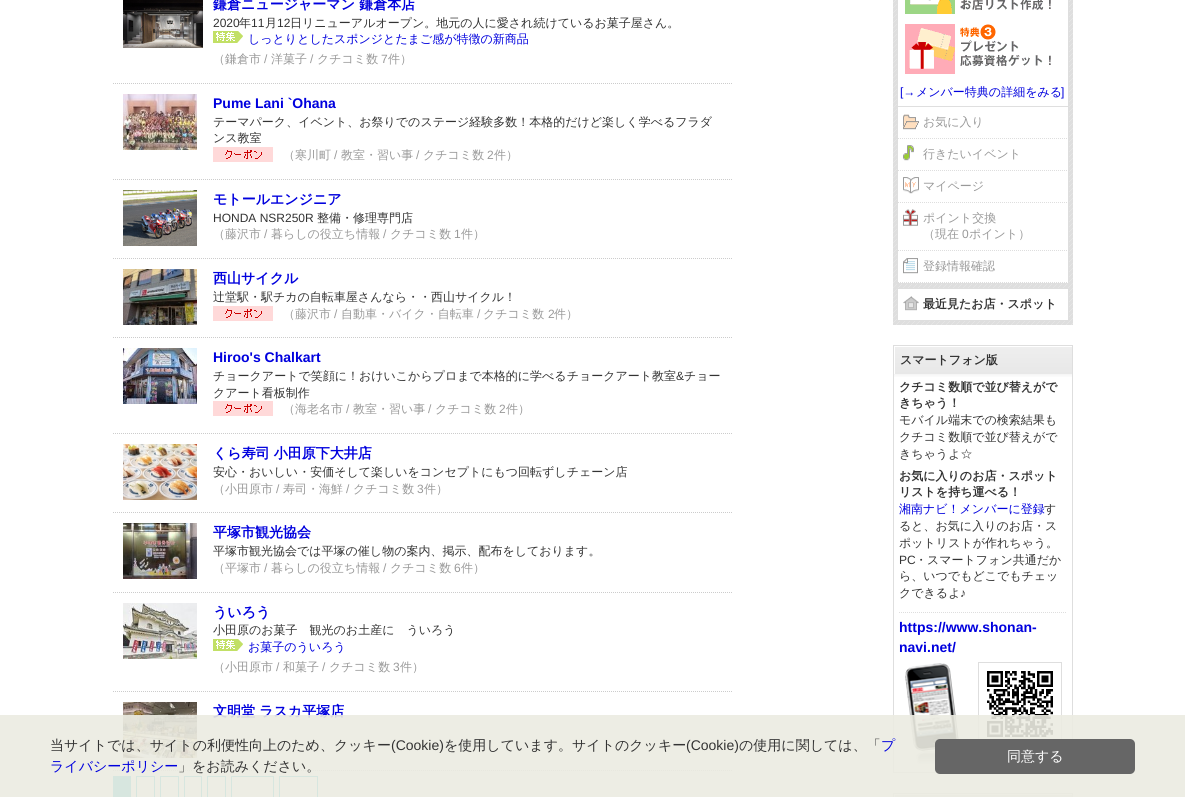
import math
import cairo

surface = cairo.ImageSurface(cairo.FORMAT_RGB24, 1185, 797)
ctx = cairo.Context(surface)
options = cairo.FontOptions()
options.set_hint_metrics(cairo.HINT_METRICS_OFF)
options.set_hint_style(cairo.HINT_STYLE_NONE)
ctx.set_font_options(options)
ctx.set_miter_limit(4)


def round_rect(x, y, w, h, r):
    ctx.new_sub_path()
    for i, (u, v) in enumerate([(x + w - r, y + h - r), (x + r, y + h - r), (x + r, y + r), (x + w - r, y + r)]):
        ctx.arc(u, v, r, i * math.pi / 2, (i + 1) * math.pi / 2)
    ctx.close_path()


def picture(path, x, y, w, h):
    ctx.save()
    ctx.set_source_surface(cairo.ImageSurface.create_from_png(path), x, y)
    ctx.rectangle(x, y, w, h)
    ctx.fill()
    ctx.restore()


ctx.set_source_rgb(1, 1, 1)
ctx.paint()
ctx.new_path()
ctx.move_to(113, 83.5)
ctx.line_to(733, 83.5)
ctx.set_source_rgb(0.8, 0.8, 0.8)
ctx.set_line_width(1)
ctx.set_dash([1, 1])
ctx.stroke()
picture("img1.png", 123, 0, 80, 48)
ctx.select_font_face("WenQuanYi Zen Hei", cairo.FONT_SLANT_NORMAL, cairo.FONT_WEIGHT_BOLD)
ctx.set_font_size(14)
ctx.set_source_rgb(0, 0, 0.871)
ctx.move_to(213, 9)
ctx.show_text("鎌倉ニュージャーマン 鎌倉本店")
ctx.select_font_face("Liberation Sans")
ctx.set_font_size(12)
ctx.set_source_rgb(0.2, 0.2, 0.2)
ctx.move_to(213, 27)
ctx.show_text("2020")
ctx.select_font_face("WenQuanYi Zen Hei Medium")
ctx.move_to(239, 27)
ctx.show_text("年")
ctx.select_font_face("Liberation Sans")
ctx.move_to(251, 27)
ctx.show_text("11")
ctx.select_font_face("WenQuanYi Zen Hei Medium")
ctx.move_to(265, 27)
ctx.show_text("月")
ctx.select_font_face("Liberation Sans")
ctx.move_to(277, 27)
ctx.show_text("12")
ctx.select_font_face("WenQuanYi Zen Hei Medium")
ctx.move_to(290, 27)
ctx.show_text("日リニューアルオープン。地元の人に愛され続けているお菓子屋さん。")
picture("img2.png", 213, 31, 30, 12)
ctx.set_source_rgb(0, 0, 0.871)
ctx.move_to(248, 43)
ctx.show_text("しっとりとしたスポンジとたまご感が特徴の新商品")
ctx.set_source_rgb(0.6, 0.6, 0.6)
ctx.move_to(213, 63)
ctx.show_text("（鎌倉市")
ctx.select_font_face("Liberation Sans")
ctx.move_to(264, 63)
ctx.show_text("/")
ctx.select_font_face("WenQuanYi Zen Hei Medium")
ctx.move_to(271, 63)
ctx.show_text("洋菓子")
ctx.select_font_face("Liberation Sans")
ctx.move_to(310, 63)
ctx.show_text("/")
ctx.select_font_face("WenQuanYi Zen Hei Medium")
ctx.move_to(317, 63)
ctx.show_text("クチコミ数")
ctx.select_font_face("Liberation Sans")
ctx.move_to(381, 63)
ctx.show_text("7")
ctx.select_font_face("WenQuanYi Zen Hei Medium")
ctx.move_to(388, 63)
ctx.show_text("件）")
ctx.new_path()
ctx.move_to(113, 179.5)
ctx.line_to(733, 179.5)
ctx.set_source_rgb(0.8, 0.8, 0.8)
ctx.stroke()
picture("img3.png", 123, 94, 74, 56)
ctx.select_font_face("Liberation Sans", cairo.FONT_SLANT_NORMAL, cairo.FONT_WEIGHT_BOLD)
ctx.set_font_size(14)
ctx.set_source_rgb(0, 0, 0.871)
ctx.move_to(213, 108)
ctx.show_text("Pume Lani `Ohana")
ctx.select_font_face("WenQuanYi Zen Hei Medium")
ctx.set_font_size(12)
ctx.set_source_rgb(0.2, 0.2, 0.2)
ctx.move_to(213, 126)
ctx.show_text("テーマパーク、イベント、お祭りでのステージ経験多数！本格的だけど楽しく学べるフラダ")
ctx.move_to(213, 142)
ctx.show_text("ンス教室")
picture("img4.png", 213, 147, 60, 15)
ctx.set_source_rgb(0.6, 0.6, 0.6)
ctx.move_to(283, 159)
ctx.show_text("（寒川町")
ctx.select_font_face("Liberation Sans")
ctx.move_to(334, 159)
ctx.show_text("/")
ctx.select_font_face("WenQuanYi Zen Hei Medium")
ctx.move_to(341, 159)
ctx.show_text("教室・習い事")
ctx.select_font_face("Liberation Sans")
ctx.move_to(416, 159)
ctx.show_text("/")
ctx.select_font_face("WenQuanYi Zen Hei Medium")
ctx.move_to(423, 159)
ctx.show_text("クチコミ数")
ctx.select_font_face("Liberation Sans")
ctx.move_to(487, 159)
ctx.show_text("2")
ctx.select_font_face("WenQuanYi Zen Hei Medium")
ctx.move_to(494, 159)
ctx.show_text("件）")
ctx.new_path()
ctx.move_to(113, 258.5)
ctx.line_to(733, 258.5)
ctx.set_source_rgb(0.8, 0.8, 0.8)
ctx.stroke()
picture("img5.png", 123, 190, 74, 56)
ctx.select_font_face("WenQuanYi Zen Hei", cairo.FONT_SLANT_NORMAL, cairo.FONT_WEIGHT_BOLD)
ctx.set_font_size(14)
ctx.set_source_rgb(0, 0, 0.871)
ctx.move_to(213, 204)
ctx.show_text("モトールエンジニア")
ctx.select_font_face("Liberation Sans")
ctx.set_font_size(12)
ctx.set_source_rgb(0.2, 0.2, 0.2)
ctx.move_to(213, 222)
ctx.show_text("HONDA NSR250R")
ctx.select_font_face("WenQuanYi Zen Hei Medium")
ctx.move_to(317, 222)
ctx.show_text("整備・修理専門店")
ctx.set_source_rgb(0.6, 0.6, 0.6)
ctx.move_to(213, 238)
ctx.show_text("（藤沢市")
ctx.select_font_face("Liberation Sans")
ctx.move_to(264, 238)
ctx.show_text("/")
ctx.select_font_face("WenQuanYi Zen Hei Medium")
ctx.move_to(271, 238)
ctx.show_text("暮らしの役立ち情報")
ctx.select_font_face("Liberation Sans")
ctx.move_to(383, 238)
ctx.show_text("/")
ctx.select_font_face("WenQuanYi Zen Hei Medium")
ctx.move_to(390, 238)
ctx.show_text("クチコミ数")
ctx.select_font_face("Liberation Sans")
ctx.move_to(454, 238)
ctx.show_text("1")
ctx.select_font_face("WenQuanYi Zen Hei Medium")
ctx.move_to(461, 238)
ctx.show_text("件）")
ctx.new_path()
ctx.move_to(113, 337.5)
ctx.line_to(733, 337.5)
ctx.set_source_rgb(0.8, 0.8, 0.8)
ctx.stroke()
picture("img6.png", 123, 269, 74, 56)
ctx.select_font_face("WenQuanYi Zen Hei", cairo.FONT_SLANT_NORMAL, cairo.FONT_WEIGHT_BOLD)
ctx.set_font_size(14)
ctx.set_source_rgb(0, 0, 0.871)
ctx.move_to(213, 283)
ctx.show_text("西山サイクル")
ctx.select_font_face("WenQuanYi Zen Hei Medium")
ctx.set_font_size(12)
ctx.set_source_rgb(0.2, 0.2, 0.2)
ctx.move_to(213, 301)
ctx.show_text("辻堂駅・駅チカの自転車屋さんなら・・西山サイクル！")
picture("img4.png", 213, 306, 60, 15)
ctx.set_source_rgb(0.6, 0.6, 0.6)
ctx.move_to(283, 318)
ctx.show_text("（藤沢市")
ctx.select_font_face("Liberation Sans")
ctx.move_to(334, 318)
ctx.show_text("/")
ctx.select_font_face("WenQuanYi Zen Hei Medium")
ctx.move_to(341, 318)
ctx.show_text("自動車・バイク・自転車")
ctx.select_font_face("Liberation Sans")
ctx.move_to(477, 318)
ctx.show_text("/")
ctx.select_font_face("WenQuanYi Zen Hei Medium")
ctx.move_to(483, 318)
ctx.show_text("クチコミ数")
ctx.select_font_face("Liberation Sans")
ctx.move_to(548, 318)
ctx.show_text("2")
ctx.select_font_face("WenQuanYi Zen Hei Medium")
ctx.move_to(554, 318)
ctx.show_text("件）")
ctx.new_path()
ctx.move_to(113, 433.5)
ctx.line_to(733, 433.5)
ctx.set_source_rgb(0.8, 0.8, 0.8)
ctx.stroke()
picture("img7.png", 123, 348, 74, 56)
ctx.select_font_face("Liberation Sans", cairo.FONT_SLANT_NORMAL, cairo.FONT_WEIGHT_BOLD)
ctx.set_font_size(14)
ctx.set_source_rgb(0, 0, 0.871)
ctx.move_to(213, 362)
ctx.show_text("Hiroo's Chalkart")
ctx.select_font_face("WenQuanYi Zen Hei Medium")
ctx.set_font_size(12)
ctx.set_source_rgb(0.2, 0.2, 0.2)
ctx.move_to(213, 380)
ctx.show_text("チョークアートで笑顔に！おけいこからプロまで本格的に学べるチョークアート教室")
ctx.select_font_face("Liberation Sans")
ctx.move_to(676, 380)
ctx.show_text("&")
ctx.select_font_face("WenQuanYi Zen Hei Medium")
ctx.move_to(684, 380)
ctx.show_text("チョー")
ctx.move_to(213, 397)
ctx.show_text("クアート看板制作")
picture("img4.png", 213, 401, 60, 15)
ctx.set_source_rgb(0.6, 0.6, 0.6)
ctx.move_to(283, 413)
ctx.show_text("（海老名市")
ctx.select_font_face("Liberation Sans")
ctx.move_to(346, 413)
ctx.show_text("/")
ctx.select_font_face("WenQuanYi Zen Hei Medium")
ctx.move_to(353, 413)
ctx.show_text("教室・習い事")
ctx.select_font_face("Liberation Sans")
ctx.move_to(428, 413)
ctx.show_text("/")
ctx.select_font_face("WenQuanYi Zen Hei Medium")
ctx.move_to(435, 413)
ctx.show_text("クチコミ数")
ctx.select_font_face("Liberation Sans")
ctx.move_to(499, 413)
ctx.show_text("2")
ctx.select_font_face("WenQuanYi Zen Hei Medium")
ctx.move_to(506, 413)
ctx.show_text("件）")
ctx.new_path()
ctx.move_to(113, 512.5)
ctx.line_to(733, 512.5)
ctx.set_source_rgb(0.8, 0.8, 0.8)
ctx.stroke()
picture("img8.png", 123, 444, 74, 56)
ctx.select_font_face("WenQuanYi Zen Hei", cairo.FONT_SLANT_NORMAL, cairo.FONT_WEIGHT_BOLD)
ctx.set_font_size(14)
ctx.set_source_rgb(0, 0, 0.871)
ctx.move_to(213, 458)
ctx.show_text("くら寿司 小田原下大井店")
ctx.select_font_face("WenQuanYi Zen Hei Medium")
ctx.set_font_size(12)
ctx.set_source_rgb(0.2, 0.2, 0.2)
ctx.move_to(213, 476)
ctx.show_text("安心・おいしい・安価そして楽しいをコンセプトにもつ回転ずしチェーン店")
ctx.set_source_rgb(0.6, 0.6, 0.6)
ctx.move_to(213, 493)
ctx.show_text("（小田原市")
ctx.select_font_face("Liberation Sans")
ctx.move_to(276, 493)
ctx.show_text("/")
ctx.select_font_face("WenQuanYi Zen Hei Medium")
ctx.move_to(283, 493)
ctx.show_text("寿司・海鮮")
ctx.select_font_face("Liberation Sans")
ctx.move_to(346, 493)
ctx.show_text("/")
ctx.select_font_face("WenQuanYi Zen Hei Medium")
ctx.move_to(353, 493)
ctx.show_text("クチコミ数")
ctx.select_font_face("Liberation Sans")
ctx.move_to(417, 493)
ctx.show_text("3")
ctx.select_font_face("WenQuanYi Zen Hei Medium")
ctx.move_to(424, 493)
ctx.show_text("件）")
ctx.new_path()
ctx.move_to(113, 592.5)
ctx.line_to(733, 592.5)
ctx.set_source_rgb(0.8, 0.8, 0.8)
ctx.stroke()
picture("img9.png", 123, 523, 74, 56)
ctx.select_font_face("WenQuanYi Zen Hei", cairo.FONT_SLANT_NORMAL, cairo.FONT_WEIGHT_BOLD)
ctx.set_font_size(14)
ctx.set_source_rgb(0, 0, 0.871)
ctx.move_to(213, 537)
ctx.show_text("平塚市観光協会")
ctx.select_font_face("WenQuanYi Zen Hei Medium")
ctx.set_font_size(12)
ctx.set_source_rgb(0.2, 0.2, 0.2)
ctx.move_to(213, 555)
ctx.show_text("平塚市観光協会では平塚の催し物の案内、掲示、配布をしております。")
ctx.set_source_rgb(0.6, 0.6, 0.6)
ctx.move_to(213, 572)
ctx.show_text("（平塚市")
ctx.select_font_face("Liberation Sans")
ctx.move_to(264, 572)
ctx.show_text("/")
ctx.select_font_face("WenQuanYi Zen Hei Medium")
ctx.move_to(271, 572)
ctx.show_text("暮らしの役立ち情報")
ctx.select_font_face("Liberation Sans")
ctx.move_to(383, 572)
ctx.show_text("/")
ctx.select_font_face("WenQuanYi Zen Hei Medium")
ctx.move_to(390, 572)
ctx.show_text("クチコミ数")
ctx.select_font_face("Liberation Sans")
ctx.move_to(454, 572)
ctx.show_text("6")
ctx.select_font_face("WenQuanYi Zen Hei Medium")
ctx.move_to(461, 572)
ctx.show_text("件）")
ctx.new_path()
ctx.move_to(113, 691.5)
ctx.line_to(733, 691.5)
ctx.set_source_rgb(0.8, 0.8, 0.8)
ctx.stroke()
picture("img10.png", 123, 603, 74, 56)
ctx.select_font_face("WenQuanYi Zen Hei", cairo.FONT_SLANT_NORMAL, cairo.FONT_WEIGHT_BOLD)
ctx.set_font_size(14)
ctx.set_source_rgb(0, 0, 0.871)
ctx.move_to(213, 617)
ctx.show_text("ういろう")
ctx.select_font_face("WenQuanYi Zen Hei Medium")
ctx.set_font_size(12)
ctx.set_source_rgb(0.2, 0.2, 0.2)
ctx.move_to(213, 634)
ctx.show_text("小田原のお菓子　観光のお土産に　ういろう")
picture("img2.png", 213, 639, 30, 12)
ctx.set_source_rgb(0, 0, 0.871)
ctx.move_to(248, 651)
ctx.show_text("お菓子のういろう")
ctx.set_source_rgb(0.6, 0.6, 0.6)
ctx.move_to(213, 671)
ctx.show_text("（小田原市")
ctx.select_font_face("Liberation Sans")
ctx.move_to(276, 671)
ctx.show_text("/")
ctx.select_font_face("WenQuanYi Zen Hei Medium")
ctx.move_to(283, 671)
ctx.show_text("和菓子")
ctx.select_font_face("Liberation Sans")
ctx.move_to(322, 671)
ctx.show_text("/")
ctx.select_font_face("WenQuanYi Zen Hei Medium")
ctx.move_to(329, 671)
ctx.show_text("クチコミ数")
ctx.select_font_face("Liberation Sans")
ctx.move_to(393, 671)
ctx.show_text("3")
ctx.select_font_face("WenQuanYi Zen Hei Medium")
ctx.move_to(400, 671)
ctx.show_text("件）")
ctx.new_path()
ctx.move_to(113, 770.5)
ctx.line_to(733, 770.5)
ctx.set_source_rgb(0.8, 0.8, 0.8)
ctx.stroke()
picture("img11.png", 123, 702, 74, 56)
ctx.select_font_face("WenQuanYi Zen Hei", cairo.FONT_SLANT_NORMAL, cairo.FONT_WEIGHT_BOLD)
ctx.set_font_size(14)
ctx.set_source_rgb(0, 0, 0.871)
ctx.move_to(213, 716)
ctx.show_text("文明堂 ラスカ平塚店")
ctx.set_source_rgb(0.106, 0.722, 0.808)
ctx.rectangle(113, 776, 18, 21)
ctx.fill()
ctx.rectangle(136.5, 776.5, 18, 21)
ctx.set_dash([])
ctx.stroke()
ctx.rectangle(160.5, 776.5, 18, 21)
ctx.stroke()
ctx.rectangle(184.5, 776.5, 17, 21)
ctx.stroke()
ctx.rectangle(207.5, 776.5, 18, 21)
ctx.stroke()
ctx.rectangle(231.5, 776.5, 42, 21)
ctx.stroke()
ctx.rectangle(279.5, 776.5, 38, 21)
ctx.stroke()
picture("img12.png", 893, 0, 180, 325)
gradient = cairo.LinearGradient(983, -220, 983, 283)
gradient.add_color_stop_rgba(0, 0.961, 0.961, 0.961, 1)
gradient.add_color_stop_rgba(0.01, 1, 1, 1, 1)
gradient.add_color_stop_rgba(1, 1, 1, 1, 1)
ctx.set_source(gradient)
ctx.rectangle(898, 0, 170, 283)
ctx.fill()
ctx.rectangle(897.5, -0.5, 171, 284)
ctx.set_source_rgb(0.871, 0.871, 0.871)
ctx.stroke()
ctx.set_source_rgb(0.875, 0.875, 0.875)
ctx.rectangle(898, 106, 170, 1)
ctx.fill()
picture("img13.png", 905, 0, 146, 74)
ctx.select_font_face("Liberation Sans")
ctx.set_font_size(12)
ctx.set_source_rgb(0, 0, 0.871)
ctx.move_to(900, 96)
ctx.show_text("[→")
ctx.select_font_face("WenQuanYi Zen Hei Medium")
ctx.move_to(916, 96)
ctx.show_text("メンバー特典の詳細をみる")
ctx.select_font_face("Liberation Sans")
ctx.move_to(1061, 96)
ctx.show_text("]")
picture("img14.png", 903, 114, 16, 16)
ctx.new_path()
ctx.move_to(898, 138.5)
ctx.line_to(1068, 138.5)
ctx.set_source_rgb(0.871, 0.871, 0.871)
ctx.set_dash([1, 1])
ctx.stroke()
ctx.select_font_face("WenQuanYi Zen Hei Medium")
ctx.set_source_rgb(0.6, 0.6, 0.6)
ctx.move_to(923, 126)
ctx.show_text("お気に入り")
picture("img15.png", 903, 145, 11, 16)
ctx.new_path()
ctx.move_to(898, 170.5)
ctx.line_to(1068, 170.5)
ctx.set_source_rgb(0.871, 0.871, 0.871)
ctx.stroke()
ctx.set_source_rgb(0.6, 0.6, 0.6)
ctx.move_to(923, 158)
ctx.show_text("行きたいイベント")
picture("img16.png", 903, 177, 16, 17)
ctx.new_path()
ctx.move_to(898, 202.5)
ctx.line_to(1068, 202.5)
ctx.set_source_rgb(0.871, 0.871, 0.871)
ctx.stroke()
ctx.set_source_rgb(0.6, 0.6, 0.6)
ctx.move_to(923, 190)
ctx.show_text("マイページ")
picture("img17.png", 903, 209, 15, 18)
ctx.new_path()
ctx.move_to(898, 250.5)
ctx.line_to(1068, 250.5)
ctx.set_source_rgb(0.871, 0.871, 0.871)
ctx.stroke()
ctx.set_source_rgb(0.6, 0.6, 0.6)
ctx.move_to(923, 222)
ctx.show_text("ポイント交換")
ctx.move_to(923, 238)
ctx.show_text("（現在")
ctx.select_font_face("Liberation Sans")
ctx.move_to(962, 238)
ctx.show_text("0")
ctx.select_font_face("WenQuanYi Zen Hei Medium")
ctx.move_to(969, 238)
ctx.show_text("ポイント）")
picture("img18.png", 903, 258, 15, 16)
ctx.new_path()
ctx.move_to(898, 282.5)
ctx.line_to(1068, 282.5)
ctx.set_source_rgb(0.871, 0.871, 0.871)
ctx.stroke()
ctx.set_source_rgb(0.6, 0.6, 0.6)
ctx.move_to(923, 270)
ctx.show_text("登録情報確認")
ctx.set_source_rgb(1, 1, 1)
ctx.rectangle(897.5, 288.5, 171, 32)
ctx.fill_preserve()
ctx.set_source_rgb(0.871, 0.871, 0.871)
ctx.set_dash([])
ctx.stroke()
picture("img19.png", 903, 296, 16, 15)
ctx.select_font_face("WenQuanYi Zen Hei", cairo.FONT_SLANT_NORMAL, cairo.FONT_WEIGHT_BOLD)
ctx.set_source_rgb(0.2, 0.2, 0.2)
ctx.move_to(923, 308)
ctx.show_text("最近見たお店・スポット")
ctx.rectangle(893.5, 345.5, 179, 427)
ctx.set_source_rgb(0.871, 0.871, 0.871)
ctx.stroke()
gradient = cairo.LinearGradient(984, 347, 984, 374)
gradient.add_color_stop_rgba(0, 0.933, 0.933, 0.933, 1)
gradient.add_color_stop_rgba(1, 0.91, 0.91, 0.91, 1)
ctx.set_source(gradient)
ctx.rectangle(895, 347, 177, 27)
ctx.fill()
ctx.set_source_rgb(0.2, 0.2, 0.2)
ctx.move_to(900, 364)
ctx.show_text("スマートフォン版")
gradient = cairo.LinearGradient(983, 374, 983, 772)
gradient.add_color_stop_rgba(0, 0.961, 0.961, 0.961, 1)
gradient.add_color_stop_rgba(0.01, 1, 1, 1, 1)
gradient.add_color_stop_rgba(1, 1, 1, 1, 1)
ctx.set_source(gradient)
ctx.rectangle(894, 374, 178, 3)
ctx.fill()
ctx.new_path()
ctx.move_to(899, 612.5)
ctx.line_to(1067, 612.5)
ctx.set_source_rgb(0.871, 0.871, 0.871)
ctx.set_dash([1, 1])
ctx.stroke()
ctx.set_source_rgb(0.2, 0.2, 0.2)
ctx.move_to(899, 391)
ctx.show_text("クチコミ数順で並び替えがで")
ctx.move_to(899, 407)
ctx.show_text("きちゃう！")
ctx.select_font_face("WenQuanYi Zen Hei Medium")
ctx.move_to(899, 424)
ctx.show_text("モバイル端末での検索結果も")
ctx.move_to(899, 441)
ctx.show_text("クチコミ数順で並び替えがで")
ctx.move_to(899, 458)
ctx.show_text("きちゃうよ☆")
ctx.select_font_face("WenQuanYi Zen Hei", cairo.FONT_SLANT_NORMAL, cairo.FONT_WEIGHT_BOLD)
ctx.move_to(899, 480)
ctx.show_text("お気に入りのお店・スポット")
ctx.move_to(899, 496)
ctx.show_text("リストを持ち運べる！")
ctx.select_font_face("WenQuanYi Zen Hei Medium")
ctx.set_source_rgb(0, 0, 0.871)
ctx.move_to(899, 513)
ctx.show_text("湘南ナビ！メンバーに登録")
ctx.set_source_rgb(0.2, 0.2, 0.2)
ctx.move_to(1044, 513)
ctx.show_text("す")
ctx.move_to(899, 530)
ctx.show_text("ると、お気に入りのお店・ス")
ctx.move_to(899, 547)
ctx.show_text("ポットリストが作れちゃう。")
ctx.select_font_face("Liberation Sans")
ctx.move_to(899, 564)
ctx.show_text("PC")
ctx.select_font_face("WenQuanYi Zen Hei Medium")
ctx.move_to(915, 564)
ctx.show_text("・スマートフォン共通だか")
ctx.move_to(899, 580)
ctx.show_text("ら、いつでもどこでもチェッ")
ctx.move_to(899, 597)
ctx.show_text("クできるよ")
ctx.select_font_face("Liberation Sans")
ctx.move_to(960, 597)
ctx.show_text("♪")
ctx.select_font_face("Liberation Sans", cairo.FONT_SLANT_NORMAL, cairo.FONT_WEIGHT_BOLD)
ctx.set_font_size(14)
ctx.set_source_rgb(0, 0, 0.871)
ctx.move_to(899, 632)
ctx.show_text("https://www.shonan-")
ctx.move_to(899, 652)
ctx.show_text("navi.net/")
picture("img20.png", 905, 663, 54, 101)
ctx.rectangle(978.5, 662.5, 83, 83)
ctx.set_source_rgb(0.871, 0.871, 0.871)
ctx.set_dash([])
ctx.stroke()
picture("img21.png", 987, 671, 66, 66)
ctx.rectangle(893.5, 793.5, 179, 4)
ctx.stroke()
gradient = cairo.LinearGradient(984, 795, 984, 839)
gradient.add_color_stop_rgba(0, 0.933, 0.933, 0.933, 1)
gradient.add_color_stop_rgba(1, 0.91, 0.91, 0.91, 1)
ctx.set_source(gradient)
ctx.rectangle(894, 795, 178, 2)
ctx.fill()
ctx.set_source_rgb(1, 1, 1)
ctx.rectangle(894, 794, 1, 3)
ctx.fill()
ctx.set_source_rgba(0.922, 0.922, 0.882, 0.9)
ctx.rectangle(0, 715, 1185, 82)
ctx.fill()
ctx.select_font_face("WenQuanYi Zen Hei Medium")
ctx.set_source_rgb(0.2, 0.2, 0.2)
ctx.move_to(50, 750)
ctx.show_text("当サイトでは、サイトの利便性向上のため、クッキー")
ctx.select_font_face("Liberation Sans")
ctx.move_to(391, 750)
ctx.show_text("(Cookie)")
ctx.select_font_face("WenQuanYi Zen Hei Medium")
ctx.move_to(444, 750)
ctx.show_text("を使用しています。サイトのクッキー")
ctx.select_font_face("Liberation Sans")
ctx.move_to(686, 750)
ctx.show_text("(Cookie)")
ctx.select_font_face("WenQuanYi Zen Hei Medium")
ctx.move_to(739, 750)
ctx.show_text("の使用に関しては、「")
ctx.set_source_rgb(0, 0, 0.871)
ctx.move_to(881, 750)
ctx.show_text("プ")
ctx.move_to(50, 771)
ctx.show_text("ライバシーポリシー")
ctx.set_source_rgb(0.2, 0.2, 0.2)
ctx.move_to(178, 771)
ctx.show_text("」をお読みください。")
ctx.set_source_rgb(0.4, 0.4, 0.4)
round_rect(935, 739, 200, 35, 5)
ctx.fill()
ctx.set_source_rgb(1, 1, 1)
ctx.move_to(1007, 761)
ctx.show_text("同意する")
surface.write_to_png("page.png")
